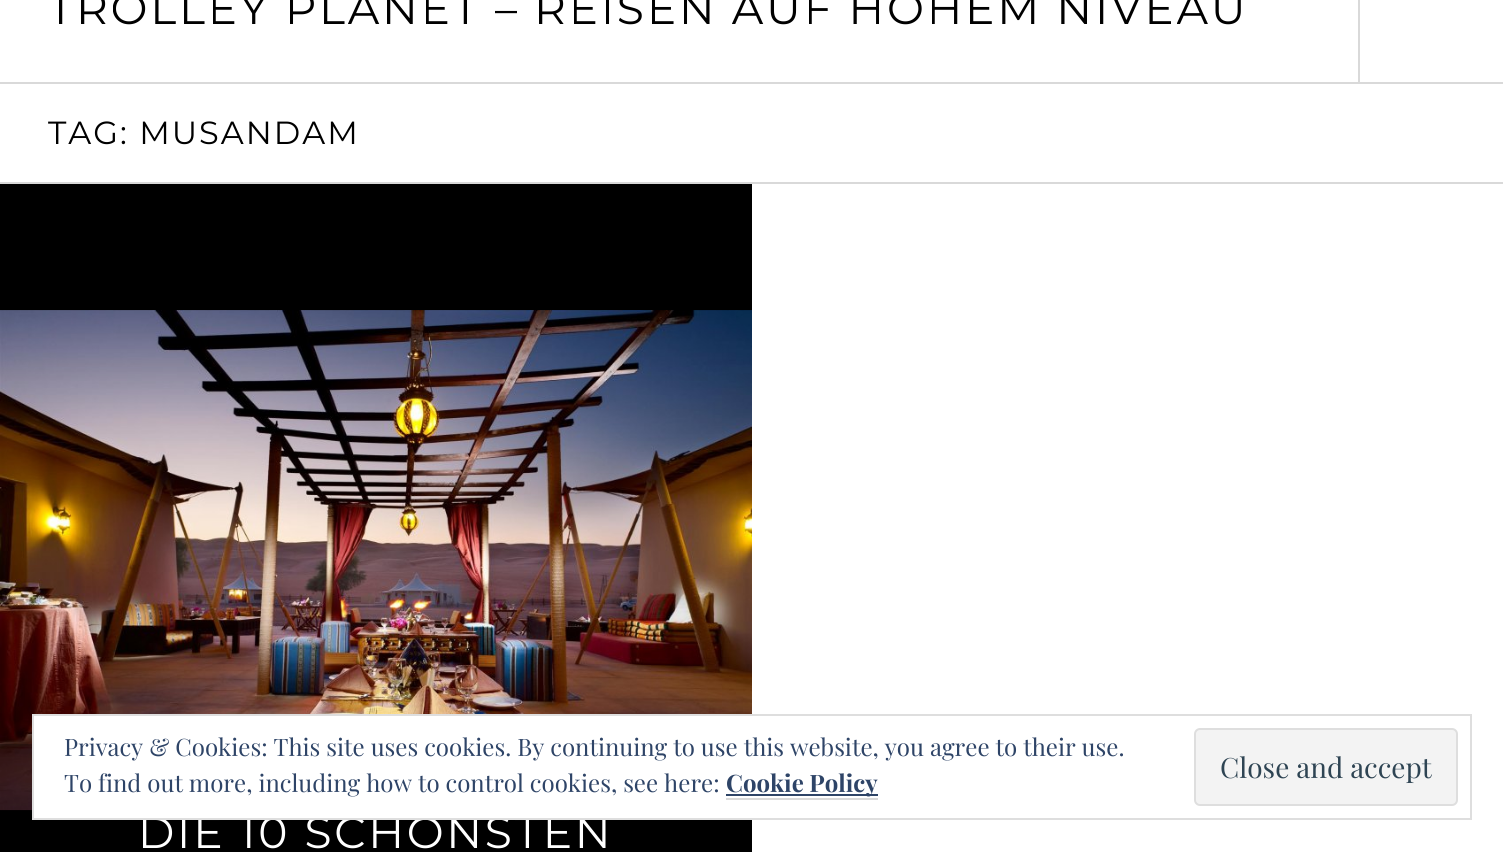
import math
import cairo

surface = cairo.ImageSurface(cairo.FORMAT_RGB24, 1503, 852)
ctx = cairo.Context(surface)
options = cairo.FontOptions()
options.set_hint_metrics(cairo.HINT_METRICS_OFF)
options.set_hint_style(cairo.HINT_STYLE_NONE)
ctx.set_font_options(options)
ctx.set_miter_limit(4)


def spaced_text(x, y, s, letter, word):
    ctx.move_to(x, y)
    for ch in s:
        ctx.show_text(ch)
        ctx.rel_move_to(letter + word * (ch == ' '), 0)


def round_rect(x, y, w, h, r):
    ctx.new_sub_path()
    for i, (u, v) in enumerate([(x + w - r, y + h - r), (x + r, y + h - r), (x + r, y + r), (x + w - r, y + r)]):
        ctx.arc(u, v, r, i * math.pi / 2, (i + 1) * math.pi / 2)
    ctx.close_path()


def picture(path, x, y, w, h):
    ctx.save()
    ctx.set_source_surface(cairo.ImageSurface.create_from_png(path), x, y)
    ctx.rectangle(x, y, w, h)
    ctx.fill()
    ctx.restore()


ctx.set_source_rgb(1, 1, 1)
ctx.paint()
ctx.set_source_rgb(0.851, 0.851, 0.851)
ctx.rectangle(0, 82, 1503, 2)
ctx.fill()
ctx.select_font_face("Montserrat")
ctx.set_font_size(44)
ctx.set_source_rgb(0, 0, 0)
spaced_text(48, 24, "TROLLEY PLANET – REISEN AUF HOHEM NIVEAU", 2.75, 0)
ctx.set_source_rgb(0.851, 0.851, 0.851)
ctx.rectangle(1358, 0, 2, 82)
ctx.fill()
ctx.rectangle(0, 182, 1503, 2)
ctx.fill()
ctx.set_font_size(32)
ctx.set_source_rgb(0, 0, 0)
spaced_text(48, 144, "TAG: MUSANDAM", 2, 0)
ctx.rectangle(0, 184, 752, 668)
ctx.fill()
picture("img1.png", 0, 310, 752, 501)
ctx.set_source_rgba(0, 0, 0, 0.25)
ctx.rectangle(0, 744, 752, 67)
ctx.fill()
ctx.set_font_size(44)
ctx.set_source_rgb(1, 1, 1)
spaced_text(138, 848, "DIE 10 SCHÖNSTEN", 2.75, 0)
ctx.rectangle(34, 716, 718, 102)
ctx.fill()
ctx.rectangle(33, 715, 1438, 104)
ctx.set_source_rgb(0.871, 0.871, 0.871)
ctx.stroke()
ctx.select_font_face("Playfair Display")
ctx.set_font_size(24)
ctx.set_source_rgb(0.18, 0.267, 0.404)
ctx.move_to(64, 756)
ctx.show_text("Privacy & Cookies: This site uses cookies. By continuing to use this website, you agree to their use.")
ctx.move_to(64, 792)
ctx.show_text("To find out more, including how to control cookies, see here:")
ctx.rectangle(726, 794, 152, 2)
ctx.fill()
ctx.select_font_face("Playfair Display", cairo.FONT_SLANT_NORMAL, cairo.FONT_WEIGHT_BOLD)
ctx.move_to(726, 792)
ctx.show_text("Cookie Policy")
ctx.set_source_rgb(0.851, 0.851, 0.851)
ctx.rectangle(726, 798, 152, 2)
ctx.fill()
ctx.set_source_rgb(0.953, 0.953, 0.953)
round_rect(1195, 729, 262, 76, 5)
ctx.fill_preserve()
ctx.set_source_rgb(0.871, 0.871, 0.871)
ctx.stroke()
ctx.select_font_face("Playfair Display")
ctx.set_font_size(28)
ctx.set_source_rgb(0.18, 0.267, 0.325)
ctx.move_to(1220, 778)
ctx.show_text("Close and accept")
surface.write_to_png("page.png")
